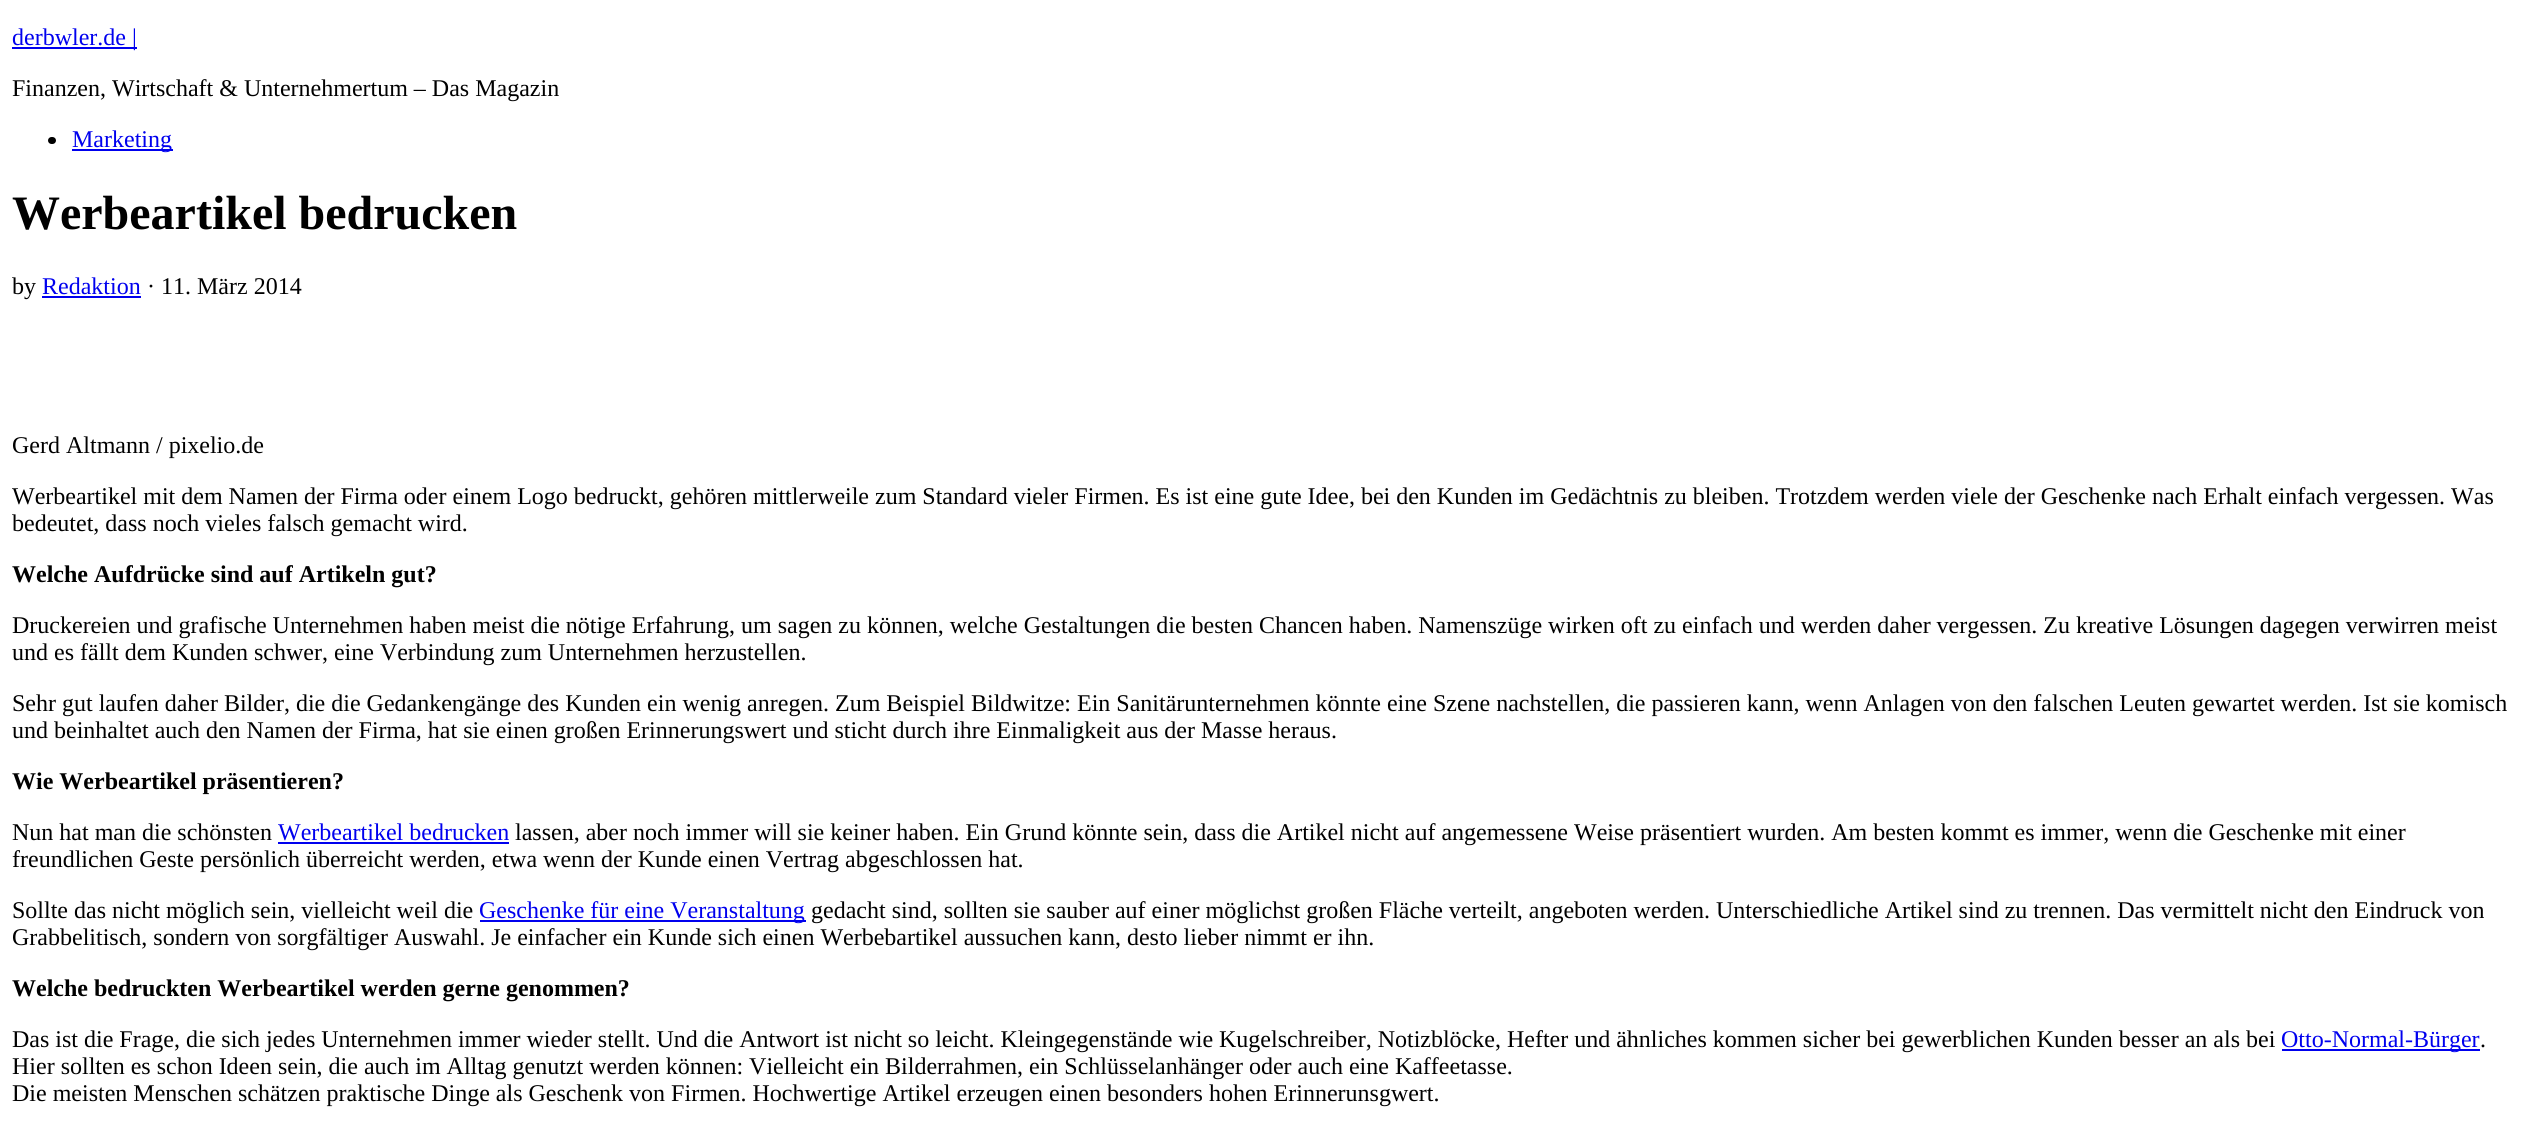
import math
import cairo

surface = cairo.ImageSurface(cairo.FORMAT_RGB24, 2542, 1121)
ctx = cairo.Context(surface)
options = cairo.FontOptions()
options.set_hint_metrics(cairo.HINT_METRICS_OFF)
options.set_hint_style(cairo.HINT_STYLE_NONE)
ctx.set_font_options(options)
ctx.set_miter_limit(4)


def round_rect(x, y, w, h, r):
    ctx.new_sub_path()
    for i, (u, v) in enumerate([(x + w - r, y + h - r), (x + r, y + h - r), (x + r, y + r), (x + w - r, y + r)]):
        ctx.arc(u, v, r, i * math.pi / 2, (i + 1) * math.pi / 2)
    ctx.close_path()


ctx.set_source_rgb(1, 1, 1)
ctx.paint()
ctx.set_source_rgb(0, 0, 0.933)
ctx.rectangle(12, 47, 125, 2)
ctx.fill()
ctx.select_font_face("Liberation Serif")
ctx.set_font_size(24)
ctx.move_to(12, 45)
ctx.show_text("derbwler.de |")
ctx.set_source_rgb(0, 0, 0)
ctx.move_to(12, 96)
ctx.show_text("Finanzen, Wirtschaft & Unternehmertum – Das Magazin")
round_rect(48, 137, 8, 7, 3.5)
ctx.fill()
ctx.set_source_rgb(0, 0, 0.933)
ctx.rectangle(72, 149, 101, 2)
ctx.fill()
ctx.move_to(72, 147)
ctx.show_text("Marketing")
ctx.select_font_face("Liberation Serif", cairo.FONT_SLANT_NORMAL, cairo.FONT_WEIGHT_BOLD)
ctx.set_font_size(48)
ctx.set_source_rgb(0, 0, 0)
ctx.move_to(12, 229)
ctx.show_text("Werbeartikel bedrucken")
ctx.select_font_face("Liberation Serif")
ctx.set_font_size(24)
ctx.move_to(12, 294)
ctx.show_text("by")
ctx.set_source_rgb(0, 0, 0.933)
ctx.move_to(42, 294)
ctx.show_text("Redaktion")
ctx.rectangle(42, 296, 99, 2)
ctx.fill()
ctx.set_source_rgb(0, 0, 0)
ctx.move_to(147, 294)
ctx.show_text("· 11. März 2014")
ctx.move_to(12, 453)
ctx.show_text("Gerd Altmann / pixelio.de")
ctx.move_to(12, 504)
ctx.show_text("Werbeartikel mit dem Namen der Firma oder einem Logo bedruckt, gehören mittlerweile zum Standard vieler Firmen. Es ist eine gute Idee, bei den Kunden im Gedächtnis zu bleiben. Trotzdem werden viele der Geschenke nach Erhalt einfach vergessen. Was")
ctx.move_to(12, 531)
ctx.show_text("bedeutet, dass noch vieles falsch gemacht wird.")
ctx.select_font_face("Liberation Serif", cairo.FONT_SLANT_NORMAL, cairo.FONT_WEIGHT_BOLD)
ctx.move_to(12, 582)
ctx.show_text("Welche Aufdrücke sind auf Artikeln gut?")
ctx.select_font_face("Liberation Serif")
ctx.move_to(12, 633)
ctx.show_text("Druckereien und grafische Unternehmen haben meist die nötige Erfahrung, um sagen zu können, welche Gestaltungen die besten Chancen haben. Namenszüge wirken oft zu einfach und werden daher vergessen. Zu kreative Lösungen dagegen verwirren meist")
ctx.move_to(12, 660)
ctx.show_text("und es fällt dem Kunden schwer, eine Verbindung zum Unternehmen herzustellen.")
ctx.move_to(12, 711)
ctx.show_text("Sehr gut laufen daher Bilder, die die Gedankengänge des Kunden ein wenig anregen. Zum Beispiel Bildwitze: Ein Sanitärunternehmen könnte eine Szene nachstellen, die passieren kann, wenn Anlagen von den falschen Leuten gewartet werden. Ist sie komisch")
ctx.move_to(12, 738)
ctx.show_text("und beinhaltet auch den Namen der Firma, hat sie einen großen Erinnerungswert und sticht durch ihre Einmaligkeit aus der Masse heraus.")
ctx.select_font_face("Liberation Serif", cairo.FONT_SLANT_NORMAL, cairo.FONT_WEIGHT_BOLD)
ctx.move_to(12, 789)
ctx.show_text("Wie Werbeartikel präsentieren?")
ctx.select_font_face("Liberation Serif")
ctx.move_to(12, 840)
ctx.show_text("Nun hat man die schönsten")
ctx.set_source_rgb(0, 0, 0.933)
ctx.move_to(278, 840)
ctx.show_text("Werbeartikel bedrucken")
ctx.rectangle(278, 842, 231, 2)
ctx.fill()
ctx.set_source_rgb(0, 0, 0)
ctx.move_to(515, 840)
ctx.show_text("lassen, aber noch immer will sie keiner haben. Ein Grund könnte sein, dass die Artikel nicht auf angemessene Weise präsentiert wurden. Am besten kommt es immer, wenn die Geschenke mit einer")
ctx.move_to(12, 867)
ctx.show_text("freundlichen Geste persönlich überreicht werden, etwa wenn der Kunde einen Vertrag abgeschlossen hat.")
ctx.move_to(12, 918)
ctx.show_text("Sollte das nicht möglich sein, vielleicht weil die")
ctx.set_source_rgb(0, 0, 0.933)
ctx.rectangle(480, 920, 326, 2)
ctx.fill()
ctx.move_to(479, 918)
ctx.show_text("Geschenke für eine Veranstaltung")
ctx.set_source_rgb(0, 0, 0)
ctx.move_to(811, 918)
ctx.show_text("gedacht sind, sollten sie sauber auf einer möglichst großen Fläche verteilt, angeboten werden. Unterschiedliche Artikel sind zu trennen. Das vermittelt nicht den Eindruck von")
ctx.move_to(12, 945)
ctx.show_text("Grabbelitisch, sondern von sorgfältiger Auswahl. Je einfacher ein Kunde sich einen Werbebartikel aussuchen kann, desto lieber nimmt er ihn.")
ctx.select_font_face("Liberation Serif", cairo.FONT_SLANT_NORMAL, cairo.FONT_WEIGHT_BOLD)
ctx.move_to(12, 996)
ctx.show_text("Welche bedruckten Werbeartikel werden gerne genommen?")
ctx.select_font_face("Liberation Serif")
ctx.move_to(12, 1047)
ctx.show_text("Das ist die Frage, die sich jedes Unternehmen immer wieder stellt. Und die Antwort ist nicht so leicht. Kleingegenstände wie Kugelschreiber, Notizblöcke, Hefter und ähnliches kommen sicher bei gewerblichen Kunden besser an als bei")
ctx.set_source_rgb(0, 0, 0.933)
ctx.rectangle(2282, 1049, 198, 2)
ctx.fill()
ctx.move_to(2281, 1047)
ctx.show_text("Otto-Normal-Bürger")
ctx.set_source_rgb(0, 0, 0)
ctx.move_to(2480, 1047)
ctx.show_text(".")
ctx.move_to(12, 1074)
ctx.show_text("Hier sollten es schon Ideen sein, die auch im Alltag genutzt werden können: Vielleicht ein Bilderrahmen, ein Schlüsselanhänger oder auch eine Kaffeetasse.")
ctx.move_to(12, 1101)
ctx.show_text("Die meisten Menschen schätzen praktische Dinge als Geschenk von Firmen. Hochwertige Artikel erzeugen einen besonders hohen Erinnerunsgwert.")
surface.write_to_png("page.png")
